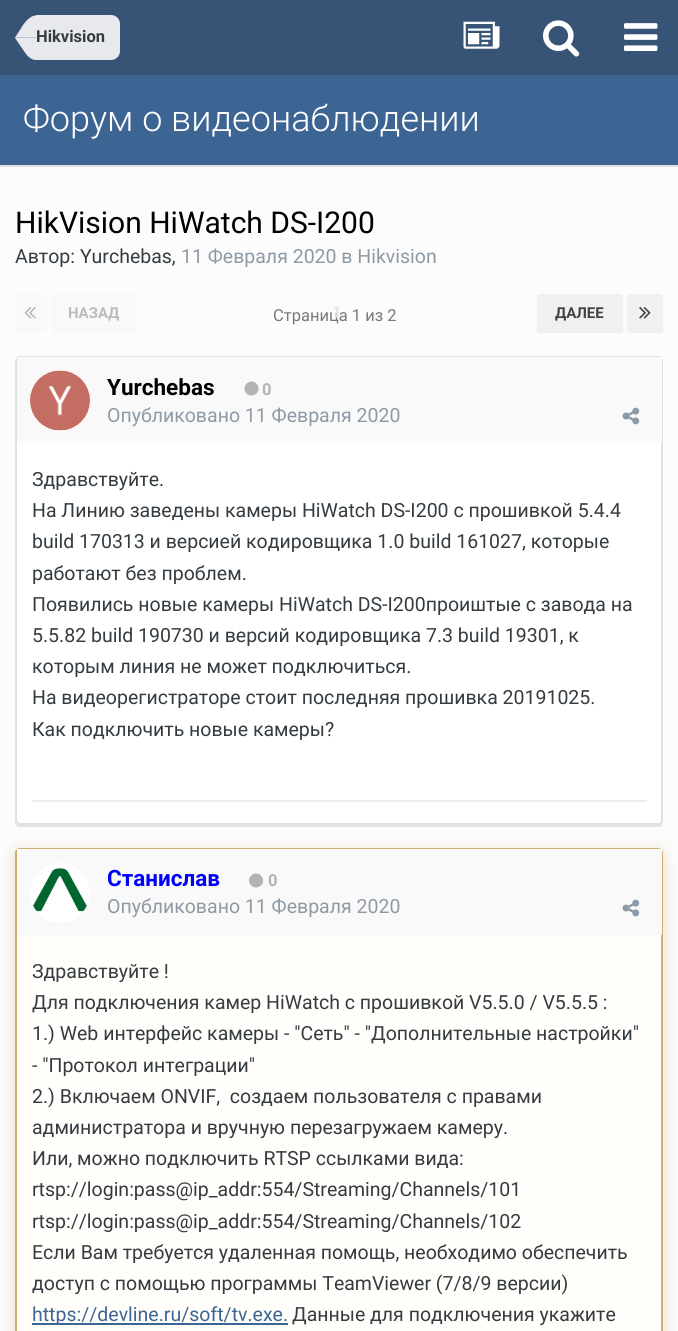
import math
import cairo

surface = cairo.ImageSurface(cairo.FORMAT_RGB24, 678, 1331)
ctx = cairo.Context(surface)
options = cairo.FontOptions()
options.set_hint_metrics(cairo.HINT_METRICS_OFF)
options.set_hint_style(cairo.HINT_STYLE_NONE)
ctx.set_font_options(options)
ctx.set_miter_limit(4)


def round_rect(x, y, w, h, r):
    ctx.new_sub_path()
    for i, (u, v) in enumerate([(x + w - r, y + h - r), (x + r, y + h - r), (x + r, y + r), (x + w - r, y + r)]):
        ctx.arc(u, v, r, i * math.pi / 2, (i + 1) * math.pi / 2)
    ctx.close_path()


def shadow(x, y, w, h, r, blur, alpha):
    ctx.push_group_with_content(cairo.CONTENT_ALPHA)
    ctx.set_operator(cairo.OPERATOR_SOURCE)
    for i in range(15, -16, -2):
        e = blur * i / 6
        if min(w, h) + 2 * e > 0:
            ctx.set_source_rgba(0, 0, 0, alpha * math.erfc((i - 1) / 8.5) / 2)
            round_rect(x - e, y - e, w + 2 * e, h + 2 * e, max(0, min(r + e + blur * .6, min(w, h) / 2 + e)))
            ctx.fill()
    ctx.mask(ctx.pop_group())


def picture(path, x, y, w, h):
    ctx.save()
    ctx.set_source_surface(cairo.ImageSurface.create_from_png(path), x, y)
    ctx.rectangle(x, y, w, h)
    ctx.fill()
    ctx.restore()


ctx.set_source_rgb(0.988, 0.988, 0.988)
ctx.paint()
ctx.set_source_rgb(0.89, 0.89, 0.89)
ctx.rectangle(0, 165, 678, 2)
ctx.fill()
ctx.set_source_rgb(0.216, 0.329, 0.463)
ctx.rectangle(0, 0, 678, 75)
ctx.fill()
ctx.set_source_rgb(0.91, 0.914, 0.922)
ctx.new_path()
ctx.move_to(36, 15)
ctx.line_to(111, 15)
ctx.curve_to(116, 15, 120, 19, 120, 24)
ctx.line_to(120, 51)
ctx.curve_to(120, 56, 116, 60, 111, 60)
ctx.line_to(36, 60)
ctx.close_path()
ctx.fill()
ctx.new_path()
ctx.move_to(15, 37.5)
ctx.line_to(36, 37.5)
ctx.line_to(36, 60)
ctx.curve_to(33, 60, 29.5, 58.5, 26, 54)
ctx.line_to(15, 38)
ctx.close_path()
ctx.fill()
ctx.new_path()
ctx.move_to(36, 15.5)
ctx.line_to(36, 37.5)
ctx.line_to(15, 37.5)
ctx.line_to(19, 31.5)
ctx.curve_to(22.5, 25.5, 28.5, 15.5, 36, 15.5)
ctx.close_path()
ctx.fill()
ctx.select_font_face("Roboto", cairo.FONT_SLANT_NORMAL, cairo.FONT_WEIGHT_BOLD)
ctx.set_font_size(16.5)
ctx.set_source_rgb(0.208, 0.235, 0.255)
ctx.move_to(36, 42)
ctx.show_text("Hikvision")
picture("img1.png", 463, 21, 37, 28)
picture("img2.png", 543, 20, 37, 37)
picture("img3.png", 624, 23, 34, 28)
ctx.set_source_rgb(0.239, 0.396, 0.58)
ctx.rectangle(0, 75, 678, 90)
ctx.fill()
ctx.select_font_face("Roboto Light")
ctx.set_font_size(36)
ctx.set_source_rgb(1, 1, 1)
ctx.move_to(23, 131)
ctx.show_text("Форум о видеонаблюдении")
ctx.select_font_face("Roboto")
ctx.set_font_size(30)
ctx.set_source_rgb(0, 0, 0)
ctx.move_to(15, 233)
ctx.show_text("HikVision HiWatch DS-I200")
ctx.set_font_size(19.5)
ctx.set_source_rgb(0.208, 0.235, 0.255)
ctx.move_to(15, 263)
ctx.show_text("Автор: Yurchebas,")
ctx.set_source_rgb(0.553, 0.604, 0.651)
ctx.move_to(181, 263)
ctx.show_text("11 Февраля 2020 в Hikvision")
ctx.set_source_rgb(0.973, 0.973, 0.973)
round_rect(15, 294, 32, 39, 3)
ctx.fill()
picture("img4.png", 24, 307, 12, 12)
round_rect(51, 294, 86, 39, 3)
ctx.fill()
ctx.select_font_face("Roboto", cairo.FONT_SLANT_NORMAL, cairo.FONT_WEIGHT_BOLD)
ctx.set_font_size(15)
ctx.set_source_rgb(0.733, 0.733, 0.733)
ctx.move_to(68, 318)
ctx.show_text("НАЗАД")
ctx.select_font_face("Roboto")
ctx.set_font_size(16.5)
ctx.set_source_rgb(0.471, 0.471, 0.471)
ctx.move_to(273, 321)
ctx.show_text("Страница 1 из 2")
ctx.select_font_face("Roboto", cairo.FONT_SLANT_NORMAL, cairo.FONT_WEIGHT_BOLD)
ctx.set_source_rgb(0.894, 0.894, 0.894)
ctx.move_to(332, 318)
ctx.show_text("1")
ctx.set_source_rgb(0.941, 0.941, 0.941)
round_rect(537, 294, 86, 39, 3)
ctx.fill()
ctx.set_font_size(15)
ctx.set_source_rgb(0.255, 0.255, 0.255)
ctx.move_to(555, 318)
ctx.show_text("ДАЛЕЕ")
ctx.set_source_rgb(0.941, 0.941, 0.941)
round_rect(627, 294, 36, 39, 3)
ctx.fill()
picture("img5.png", 639, 307, 12, 12)
ctx.set_source_rgb(0.89, 0.89, 0.89)
ctx.new_path()
ctx.move_to(15, 820)
ctx.curve_to(15, 824, 16, 827, 20, 827)
ctx.line_to(658, 827)
ctx.curve_to(662, 827, 663, 824, 663, 820)
ctx.curve_to(663, 823, 661, 825, 658, 825)
ctx.line_to(20, 825)
ctx.curve_to(17, 825, 15, 823, 15, 820)
ctx.close_path()
ctx.fill()
ctx.set_source_rgb(1, 1, 1)
round_rect(16, 357, 646, 467, 4)
ctx.fill_preserve()
ctx.set_source_rgb(0.878, 0.878, 0.878)
ctx.stroke()
ctx.set_source_rgb(0.973, 0.973, 0.973)
ctx.rectangle(17, 357, 645, 86)
ctx.fill()
ctx.set_source_rgb(1, 1, 1)
ctx.arc(60, 401, 30, 0, 2 * math.pi)
ctx.fill()
picture("img6.png", 30, 370, 60, 61)
ctx.set_font_size(22.5)
ctx.set_source_rgb(0, 0, 0)
ctx.move_to(107, 395)
ctx.show_text("Yurchebas")
ctx.set_source_rgb(0.702, 0.702, 0.702)
ctx.new_path()
ctx.move_to(257.5, 385)
ctx.curve_to(262.5, 393, 250, 400, 245.5, 392)
ctx.curve_to(241, 384, 253, 377, 257.5, 385)
ctx.close_path()
ctx.fill()
ctx.set_font_size(16.5)
ctx.move_to(262, 395)
ctx.show_text("0")
ctx.select_font_face("Roboto")
ctx.set_font_size(19.5)
ctx.set_source_rgb(0.553, 0.604, 0.651)
ctx.move_to(107, 422)
ctx.show_text("Опубликовано 11 Февраля 2020")
picture("img7.png", 622, 407, 18, 18)
ctx.set_source_rgb(0.208, 0.235, 0.255)
ctx.move_to(32, 486)
ctx.show_text("Здравствуйте.")
ctx.move_to(32, 517)
ctx.show_text("На Линию заведены камеры HiWatch DS-I200 с прошивкой 5.4.4")
ctx.move_to(32, 548)
ctx.show_text("build 170313 и версией кодировщика 1.0 build 161027, которые")
ctx.move_to(32, 580)
ctx.show_text("работают без проблем.")
ctx.move_to(32, 611)
ctx.show_text("Появились новые камеры HiWatch DS-I200проиштые с завода на")
ctx.move_to(32, 642)
ctx.show_text("5.5.82 build 190730 и версий кодировщика 7.3 build 19301, к")
ctx.move_to(32, 673)
ctx.show_text("которым линия не может подключиться.")
ctx.move_to(32, 704)
ctx.show_text("На видеорегистраторе стоит последняя прошивка 20191025.")
ctx.move_to(32, 736)
ctx.show_text("Как подключить новые камеры?")
ctx.set_source_rgb(0.925, 0.925, 0.925)
ctx.rectangle(32, 800, 615, 2)
ctx.fill()
ctx.set_source_rgb(0.816, 0.678, 0.443)
shadow(15, 851, 648, 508, 5, 7.5, 0.4)
ctx.set_source_rgb(1, 0.996, 0.98)
round_rect(16, 849, 646, 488, 4)
ctx.fill_preserve()
ctx.set_source_rgb(0.816, 0.678, 0.443)
ctx.stroke()
ctx.set_source_rgb(0.973, 0.973, 0.973)
ctx.rectangle(17, 849, 645, 86)
ctx.fill()
ctx.set_source_rgb(1, 1, 1)
ctx.arc(60, 893, 30, 0, 2 * math.pi)
ctx.fill()
picture("img8.png", 33, 868, 54, 44)
ctx.select_font_face("Roboto", cairo.FONT_SLANT_NORMAL, cairo.FONT_WEIGHT_BOLD)
ctx.set_font_size(22.5)
ctx.set_source_rgb(0, 0, 1)
ctx.move_to(107, 886)
ctx.show_text("Станислав")
ctx.set_source_rgb(0.702, 0.702, 0.702)
ctx.new_path()
ctx.move_to(262, 877)
ctx.curve_to(267, 885, 254.5, 892, 250, 884)
ctx.curve_to(245.5, 876, 257.5, 869, 262, 877)
ctx.close_path()
ctx.fill()
ctx.set_font_size(16.5)
ctx.move_to(268, 886)
ctx.show_text("0")
ctx.select_font_face("Roboto")
ctx.set_font_size(19.5)
ctx.set_source_rgb(0.553, 0.604, 0.651)
ctx.move_to(107, 913)
ctx.show_text("Опубликовано 11 Февраля 2020")
picture("img7.png", 622, 899, 18, 18)
ctx.set_source_rgb(0.208, 0.235, 0.255)
ctx.move_to(32, 978)
ctx.show_text("Здравствуйте !")
ctx.move_to(32, 1009)
ctx.show_text("Для подключения камер HiWatch с прошивкой V5.5.0 / V5.5.5 :")
ctx.move_to(32, 1040)
ctx.show_text("1.) Web интерфейс камеры - \"Сеть\" - \"Дополнительные настройки\"")
ctx.move_to(32, 1072)
ctx.show_text("- \"Протокол интеграции\"")
ctx.move_to(32, 1103)
ctx.show_text("2.) Включаем ONVIF,  создаем пользователя с правами")
ctx.move_to(32, 1134)
ctx.show_text("администратора и вручную перезагружаем камеру.")
ctx.move_to(32, 1165)
ctx.show_text("Или, можно подключить RTSP ссылками вида:")
ctx.move_to(32, 1196)
ctx.show_text("rtsp://login:pass@ip_addr:554/Streaming/Channels/101")
ctx.move_to(32, 1228)
ctx.show_text("rtsp://login:pass@ip_addr:554/Streaming/Channels/102")
ctx.move_to(32, 1259)
ctx.show_text("Если Вам требуется удаленная помощь, необходимо обеспечить")
ctx.move_to(32, 1290)
ctx.show_text("доступ с помощью программы TeamViewer (7/8/9 версии)")
ctx.set_source_rgb(0.239, 0.396, 0.58)
ctx.rectangle(32, 1323, 256, 2)
ctx.fill()
ctx.move_to(32, 1321)
ctx.show_text("https://devline.ru/soft/tv.exe.")
ctx.set_source_rgb(0.208, 0.235, 0.255)
ctx.move_to(292, 1321)
ctx.show_text("Данные для подключения укажите")
surface.write_to_png("page.png")
